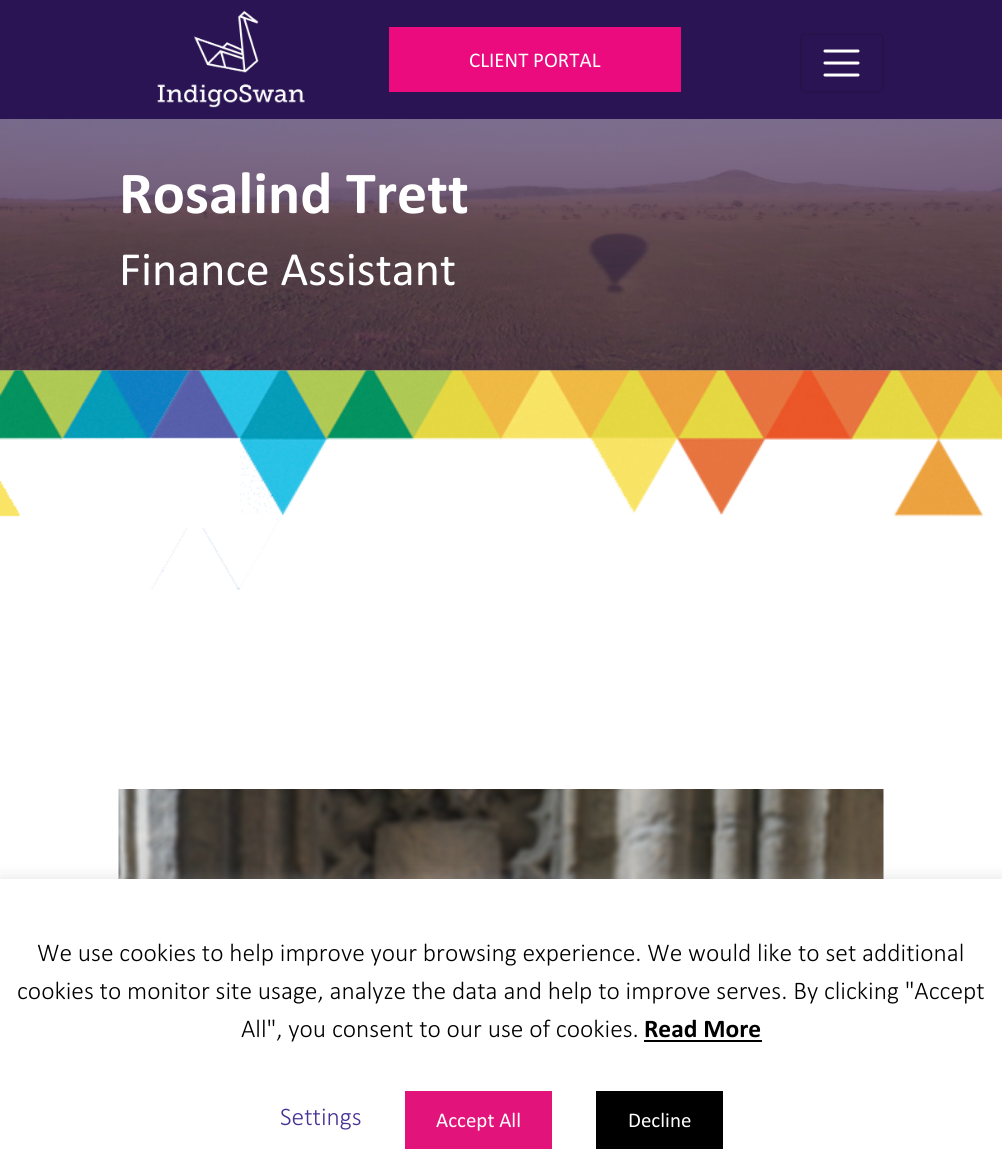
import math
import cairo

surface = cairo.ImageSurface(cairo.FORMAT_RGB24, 1002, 1167)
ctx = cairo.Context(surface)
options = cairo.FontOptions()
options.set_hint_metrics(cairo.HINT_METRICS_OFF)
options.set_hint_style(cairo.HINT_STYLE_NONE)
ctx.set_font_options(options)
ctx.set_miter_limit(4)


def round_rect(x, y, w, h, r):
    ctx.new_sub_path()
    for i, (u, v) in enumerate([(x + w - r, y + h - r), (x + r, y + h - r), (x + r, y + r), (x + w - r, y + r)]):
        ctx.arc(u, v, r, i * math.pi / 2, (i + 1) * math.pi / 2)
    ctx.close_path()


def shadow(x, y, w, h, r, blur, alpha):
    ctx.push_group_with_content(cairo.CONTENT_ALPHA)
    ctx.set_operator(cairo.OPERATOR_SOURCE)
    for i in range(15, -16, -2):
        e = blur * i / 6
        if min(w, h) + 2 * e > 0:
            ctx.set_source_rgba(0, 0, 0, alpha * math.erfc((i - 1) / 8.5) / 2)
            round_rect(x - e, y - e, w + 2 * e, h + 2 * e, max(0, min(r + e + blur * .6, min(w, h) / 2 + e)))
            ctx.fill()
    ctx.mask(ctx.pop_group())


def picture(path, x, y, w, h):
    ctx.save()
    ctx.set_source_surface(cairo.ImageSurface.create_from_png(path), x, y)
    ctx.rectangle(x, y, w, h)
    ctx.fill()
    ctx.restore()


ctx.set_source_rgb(1, 1, 1)
ctx.paint()
ctx.set_source_rgb(0.165, 0.082, 0.329)
ctx.rectangle(0, 0, 1002, 119)
ctx.fill()
picture("img1.png", 157, 10, 148, 98)
ctx.set_source_rgb(0.918, 0.043, 0.494)
ctx.rectangle(389, 27, 292, 65)
ctx.fill()
ctx.select_font_face("Calibri")
ctx.set_font_size(21)
ctx.set_source_rgb(1, 1, 1)
ctx.move_to(469, 67)
ctx.show_text("CLIENT PORTAL")
round_rect(801, 34, 82, 58, 5)
ctx.set_source_rgb(0.149, 0.075, 0.298)
ctx.stroke()
ctx.new_path()
ctx.move_to(825, 51)
ctx.line_to(858, 51)
ctx.move_to(825, 63)
ctx.line_to(858, 63)
ctx.move_to(825, 75)
ctx.line_to(858, 75)
ctx.set_source_rgb(1, 1, 1)
ctx.set_line_width(3)
ctx.set_line_cap(cairo.LINE_CAP_ROUND)
ctx.stroke()
picture("img2.png", 0, 119, 1002, 252)
ctx.select_font_face("Calibri", cairo.FONT_SLANT_NORMAL, cairo.FONT_WEIGHT_BOLD)
ctx.set_font_size(60)
ctx.move_to(119, 213)
ctx.show_text("Rosalind Trett")
ctx.select_font_face("Calibri")
ctx.set_font_size(48)
ctx.move_to(119, 285)
ctx.show_text("Finance Assistant")
picture("img3.png", 0, 370, 1002, 220)
picture("img4.png", 118, 789, 766, 90)
ctx.set_source_rgb(0.675, 0.671, 0.671)
shadow(0, 878, 1002, 288, 0, 7.5, 0.3)
ctx.set_source_rgb(1, 1, 1)
ctx.rectangle(0, 879, 1002, 288)
ctx.fill()
ctx.select_font_face("Calibri Light")
ctx.set_font_size(25.5)
ctx.set_source_rgb(0, 0, 0)
ctx.move_to(37, 961)
ctx.show_text("We use cookies to help improve your browsing experience. We would like to set additional")
ctx.move_to(17, 999)
ctx.show_text("cookies to monitor site usage, analyze the data and help to improve serves. By clicking \"Accept")
ctx.move_to(241, 1037)
ctx.show_text("All\", you consent to our use of cookies.")
ctx.select_font_face("Calibri", cairo.FONT_SLANT_NORMAL, cairo.FONT_WEIGHT_BOLD)
ctx.move_to(644, 1037)
ctx.show_text("Read More")
ctx.rectangle(644, 1040, 118, 2)
ctx.fill()
ctx.select_font_face("Calibri Light")
ctx.set_source_rgb(0.282, 0.196, 0.58)
ctx.move_to(280, 1125)
ctx.show_text("Settings")
ctx.set_source_rgb(0.89, 0.075, 0.486)
ctx.rectangle(405, 1091, 147, 58)
ctx.fill()
ctx.select_font_face("Calibri")
ctx.set_font_size(21)
ctx.set_source_rgb(1, 1, 1)
ctx.move_to(436, 1127)
ctx.show_text("Accept All")
ctx.set_source_rgb(0, 0, 0)
ctx.rectangle(596, 1091, 127, 58)
ctx.fill()
ctx.set_source_rgb(1, 1, 1)
ctx.move_to(628, 1127)
ctx.show_text("Decline")
surface.write_to_png("page.png")
